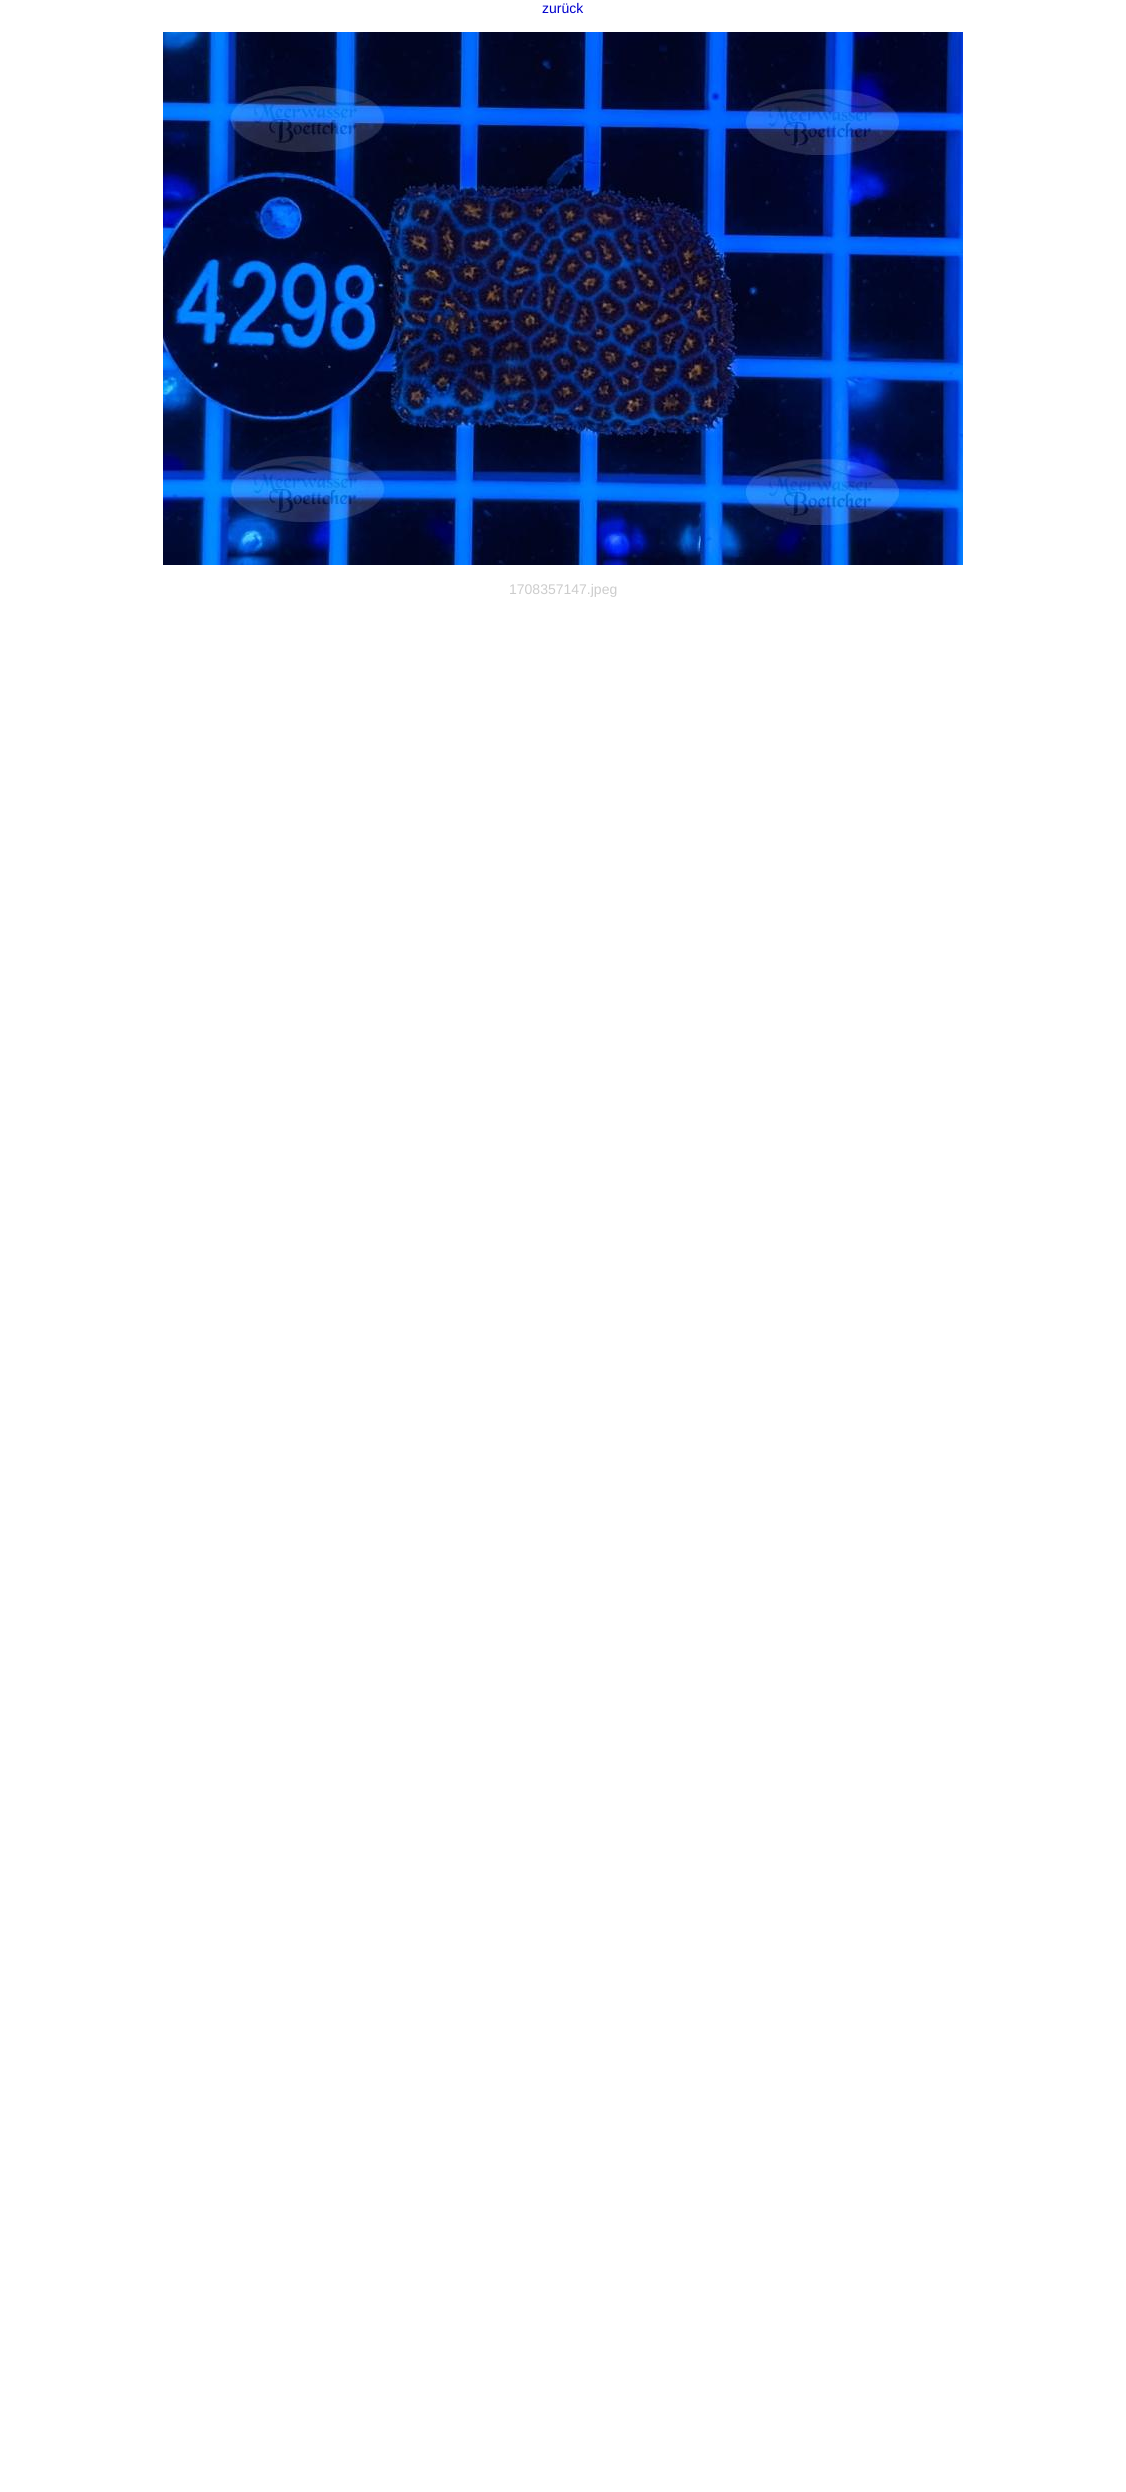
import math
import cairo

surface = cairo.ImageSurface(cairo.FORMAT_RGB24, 1126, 2492)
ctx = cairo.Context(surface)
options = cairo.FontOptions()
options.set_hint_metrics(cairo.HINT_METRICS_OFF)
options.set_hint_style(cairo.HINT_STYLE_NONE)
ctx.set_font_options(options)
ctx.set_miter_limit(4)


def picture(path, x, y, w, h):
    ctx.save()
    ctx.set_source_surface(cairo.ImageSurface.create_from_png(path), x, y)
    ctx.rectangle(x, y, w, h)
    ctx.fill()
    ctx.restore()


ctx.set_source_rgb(1, 1, 1)
ctx.paint()
ctx.select_font_face("Liberation Sans")
ctx.set_font_size(14)
ctx.set_source_rgb(0, 0, 0.8)
ctx.move_to(542, 13)
ctx.show_text("zurück")
picture("img1.png", 163, 32, 800, 533)
ctx.set_source_rgb(0.8, 0.8, 0.8)
ctx.move_to(509, 594)
ctx.show_text("1708357147.jpeg")
surface.write_to_png("page.png")
